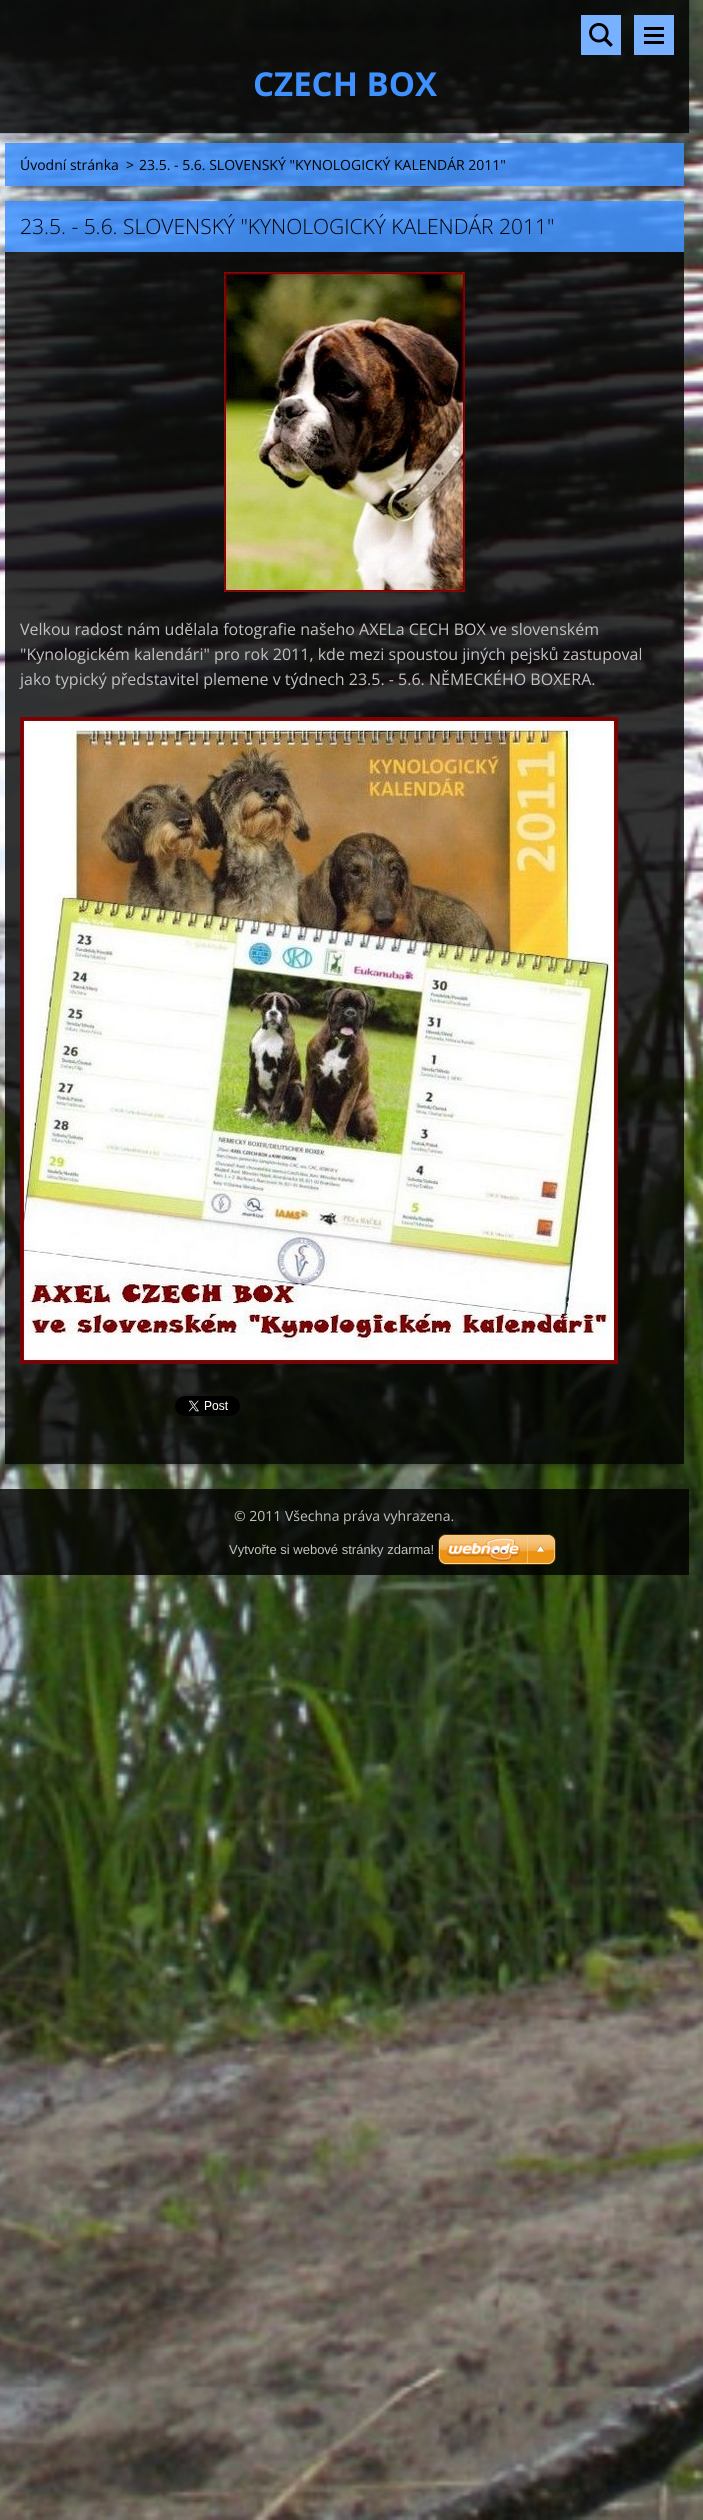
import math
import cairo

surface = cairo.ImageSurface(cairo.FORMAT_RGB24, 703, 2520)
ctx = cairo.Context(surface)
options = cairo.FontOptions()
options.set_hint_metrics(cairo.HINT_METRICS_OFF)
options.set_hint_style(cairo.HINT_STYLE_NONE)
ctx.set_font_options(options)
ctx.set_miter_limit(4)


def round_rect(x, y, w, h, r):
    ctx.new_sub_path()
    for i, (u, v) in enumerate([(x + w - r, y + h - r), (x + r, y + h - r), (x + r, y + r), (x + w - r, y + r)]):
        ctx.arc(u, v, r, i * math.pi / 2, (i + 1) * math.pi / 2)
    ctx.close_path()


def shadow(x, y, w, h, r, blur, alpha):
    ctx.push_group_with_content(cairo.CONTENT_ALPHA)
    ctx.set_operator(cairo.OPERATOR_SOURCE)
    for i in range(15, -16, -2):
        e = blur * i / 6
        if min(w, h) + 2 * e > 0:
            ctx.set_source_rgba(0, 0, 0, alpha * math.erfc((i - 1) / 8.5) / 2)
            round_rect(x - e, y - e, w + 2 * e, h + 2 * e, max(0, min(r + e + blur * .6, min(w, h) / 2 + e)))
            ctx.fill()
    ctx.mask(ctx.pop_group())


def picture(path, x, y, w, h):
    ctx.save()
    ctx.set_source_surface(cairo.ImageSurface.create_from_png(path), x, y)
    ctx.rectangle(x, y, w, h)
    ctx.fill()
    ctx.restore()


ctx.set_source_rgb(1, 1, 1)
ctx.paint()
picture("img1.png", 0, 0, 703, 2520)
ctx.rectangle(-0.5, -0.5, 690, 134)
ctx.set_source_rgba(0, 0, 0, 0.1)
ctx.set_line_width(1)
ctx.stroke()
ctx.set_source_rgba(0, 0, 0, 0.8)
ctx.rectangle(0, 0, 689, 108)
ctx.fill()
ctx.set_source_rgb(0.467, 0.694, 1)
ctx.rectangle(581, 15, 40, 40)
ctx.fill()
picture("img2.png", 589, 23, 24, 24)
ctx.rectangle(634, 15, 40, 40)
ctx.fill()
ctx.set_source_rgb(0, 0, 0)
ctx.rectangle(644, 27, 20, 3)
ctx.fill()
ctx.rectangle(644, 34, 20, 3)
ctx.fill()
ctx.rectangle(644, 41, 20, 3)
ctx.fill()
ctx.select_font_face("Open Sans", cairo.FONT_SLANT_NORMAL, cairo.FONT_WEIGHT_BOLD)
ctx.set_font_size(33)
ctx.set_source_rgb(0.247, 0.569, 1)
ctx.move_to(253, 96)
ctx.show_text("CZECH BOX")
ctx.set_source_rgba(0, 0, 0, 0.8)
ctx.rectangle(0, 108, 689, 25)
ctx.fill()
ctx.save()
ctx.rectangle(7, 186, 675, 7)
ctx.clip()
ctx.set_source_rgb(0, 0, 0)
shadow(11, 157, 667, 31, 0, 3, 0.35)
ctx.restore()
ctx.set_source_rgba(0.247, 0.569, 1, 0.85)
ctx.rectangle(5, 143, 679, 43)
ctx.fill()
ctx.select_font_face("Open Sans")
ctx.set_font_size(14)
ctx.set_source_rgb(0, 0, 0)
ctx.move_to(20, 170)
ctx.show_text("Úvodní stránka")
ctx.move_to(126, 170)
ctx.show_text(">")
ctx.move_to(139, 170)
ctx.show_text("23.5. - 5.6. SLOVENSKÝ \"KYNOLOGICKÝ KALENDÁR 2011\"")
ctx.save()
ctx.rectangle(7, 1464, 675, 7)
ctx.clip()
ctx.set_source_rgb(0, 0, 0)
shadow(11, 215, 667, 1251, 0, 3, 0.35)
ctx.restore()
ctx.set_source_rgba(0.247, 0.569, 1, 0.85)
ctx.rectangle(5, 201, 679, 51)
ctx.fill()
ctx.select_font_face("Open Sans Light")
ctx.set_font_size(21)
ctx.set_source_rgb(0, 0, 0)
ctx.move_to(20, 234)
ctx.show_text("23.5. - 5.6. SLOVENSKÝ \"KYNOLOGICKÝ KALENDÁR 2011\"")
ctx.set_source_rgba(0, 0, 0, 0.8)
ctx.rectangle(5, 252, 679, 1144)
ctx.fill()
picture("img3.png", 224, 272, 241, 320)
ctx.select_font_face("Open Sans")
ctx.set_font_size(16)
ctx.set_source_rgb(0.761, 0.761, 0.761)
ctx.move_to(20, 635)
ctx.show_text("Velkou radost nám udělala fotografie našeho AXELa CECH BOX ve slovenském")
ctx.move_to(20, 660)
ctx.show_text("\"Kynologickém kalendári\" pro rok 2011, kde mezi spoustou jiných pejsků zastupoval")
ctx.move_to(20, 685)
ctx.show_text("jako typický představitel plemene v týdnech 23.5. - 5.6. NĚMECKÉHO BOXERA.")
picture("img4.png", 20, 717, 598, 647)
ctx.set_source_rgba(0, 0, 0, 0.8)
ctx.rectangle(5, 1396, 679, 68)
ctx.fill()
picture("img5.png", 175, 1396, 65, 20)
ctx.rectangle(0, 1489, 689, 48)
ctx.fill()
ctx.set_font_size(14)
ctx.set_source_rgb(0.761, 0.761, 0.761)
ctx.move_to(234, 1521)
ctx.show_text("© 2011 Všechna práva vyhrazena.")
ctx.set_source_rgba(0, 0, 0, 0.8)
ctx.rectangle(0, 1537, 689, 38)
ctx.fill()
ctx.select_font_face("Liberation Sans")
ctx.set_font_size(13)
ctx.set_source_rgb(0.761, 0.761, 0.761)
ctx.move_to(229, 1554)
ctx.show_text("Vytvořte si webové stránky zdarma!")
picture("img6.png", 438, 1534, 118, 31)
surface.write_to_png("page.png")
